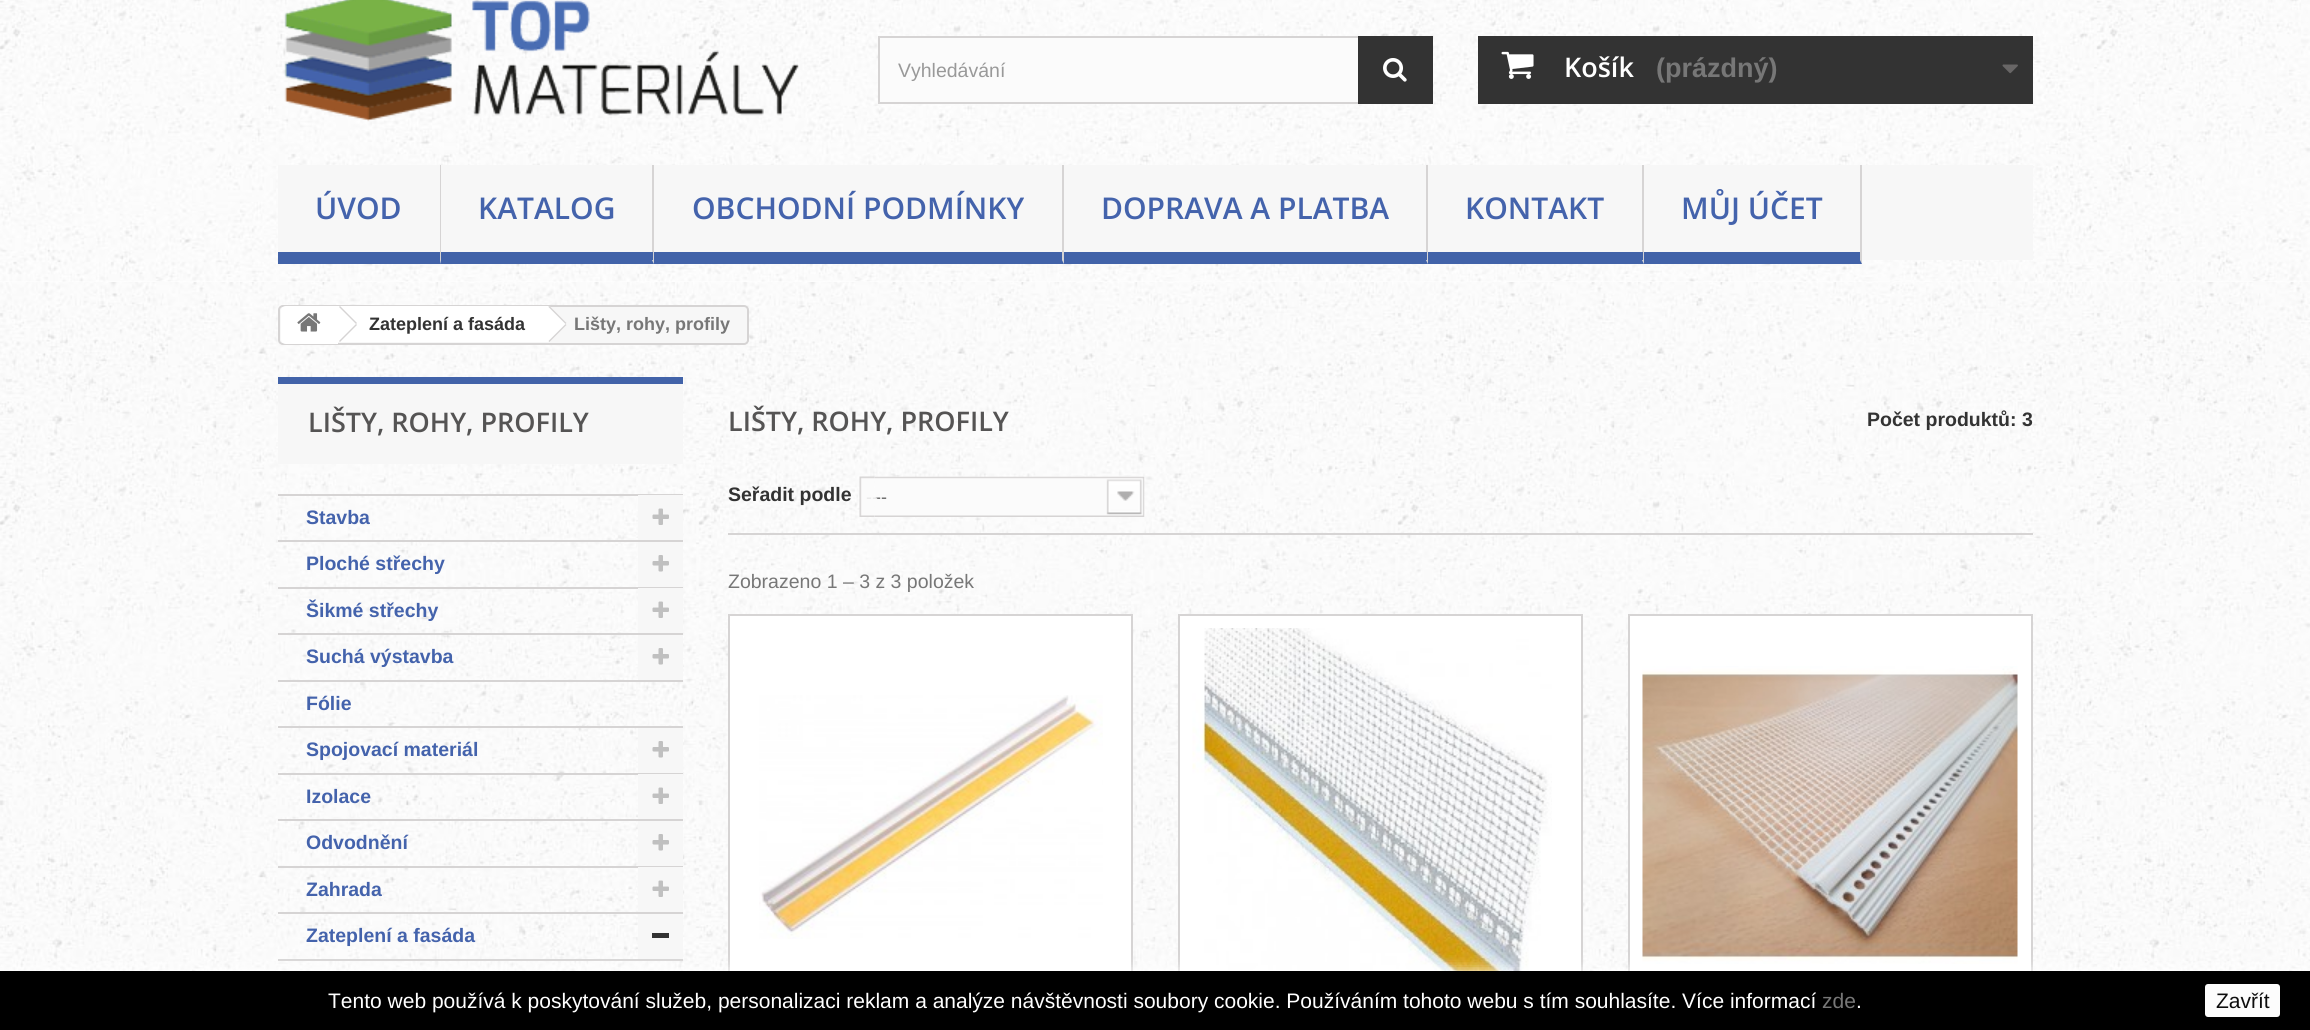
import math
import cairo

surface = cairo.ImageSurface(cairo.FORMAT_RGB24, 2310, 1030)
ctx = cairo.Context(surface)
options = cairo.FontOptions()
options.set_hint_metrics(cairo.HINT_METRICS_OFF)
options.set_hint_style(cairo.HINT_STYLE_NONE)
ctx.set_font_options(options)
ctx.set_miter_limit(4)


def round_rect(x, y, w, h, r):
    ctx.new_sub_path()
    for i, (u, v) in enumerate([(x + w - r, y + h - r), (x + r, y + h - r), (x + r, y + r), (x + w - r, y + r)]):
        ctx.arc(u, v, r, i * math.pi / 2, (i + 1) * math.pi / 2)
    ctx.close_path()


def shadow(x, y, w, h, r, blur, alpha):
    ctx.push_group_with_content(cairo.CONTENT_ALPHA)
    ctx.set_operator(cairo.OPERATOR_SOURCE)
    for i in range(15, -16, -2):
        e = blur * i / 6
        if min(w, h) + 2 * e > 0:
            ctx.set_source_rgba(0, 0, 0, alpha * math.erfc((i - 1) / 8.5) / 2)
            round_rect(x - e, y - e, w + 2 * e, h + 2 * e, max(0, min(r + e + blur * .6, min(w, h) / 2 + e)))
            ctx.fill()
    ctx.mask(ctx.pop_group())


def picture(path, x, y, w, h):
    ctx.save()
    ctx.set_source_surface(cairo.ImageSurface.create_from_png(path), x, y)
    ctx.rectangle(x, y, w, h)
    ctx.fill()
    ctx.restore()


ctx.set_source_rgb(1, 1, 1)
ctx.paint()
picture("img1.png", 0, 0, 2310, 282)
picture("img2.png", 284, 0, 515, 122)
ctx.set_source_rgb(0.984, 0.984, 0.984)
ctx.rectangle(880, 38, 478, 64)
ctx.fill()
ctx.rectangle(879, 37, 553, 66)
ctx.set_source_rgb(0.839, 0.831, 0.831)
ctx.stroke()
ctx.select_font_face("Liberation Sans")
ctx.set_font_size(19.5)
ctx.set_source_rgb(0.6, 0.6, 0.6)
ctx.move_to(898, 77)
ctx.show_text("Vyhledávání")
ctx.set_source_rgb(0.2, 0.2, 0.2)
ctx.rectangle(1358, 36, 75, 68)
ctx.fill()
picture("img3.png", 1383, 58, 24, 24)
ctx.rectangle(1478, 36, 555, 68)
ctx.fill()
picture("img4.png", 1501, 51, 33, 28)
ctx.select_font_face("Open Sans SemiBold")
ctx.set_font_size(27)
ctx.set_source_rgb(1, 1, 1)
ctx.move_to(1564, 77)
ctx.show_text("Košík")
ctx.select_font_face("Liberation Sans", cairo.FONT_SLANT_NORMAL, cairo.FONT_WEIGHT_BOLD)
ctx.set_source_rgb(0.467, 0.467, 0.467)
ctx.move_to(1656, 77)
ctx.show_text("(prázdný)")
picture("img5.png", 2002, 64, 16, 10)
ctx.set_source_rgb(0.965, 0.965, 0.965)
ctx.rectangle(278, 165, 1755, 95)
ctx.fill()
ctx.set_source_rgb(0.839, 0.831, 0.831)
ctx.new_path()
ctx.move_to(441, 165)
ctx.line_to(441, 264)
ctx.line_to(440, 260)
ctx.line_to(440, 165)
ctx.close_path()
ctx.fill()
ctx.set_source_rgb(0.259, 0.388, 0.663)
ctx.new_path()
ctx.move_to(441, 264)
ctx.line_to(278, 264)
ctx.line_to(278, 260)
ctx.line_to(440, 260)
ctx.close_path()
ctx.fill()
ctx.rectangle(278, 252, 162, 8)
ctx.fill()
ctx.select_font_face("Open Sans SemiBold")
ctx.set_font_size(30)
ctx.set_source_rgb(0.267, 0.388, 0.675)
ctx.move_to(315, 219)
ctx.show_text("ÚVOD")
ctx.set_source_rgb(0.839, 0.831, 0.831)
ctx.new_path()
ctx.move_to(654, 165)
ctx.line_to(654, 264)
ctx.line_to(652, 260)
ctx.line_to(652, 165)
ctx.close_path()
ctx.fill()
ctx.set_source_rgb(0.259, 0.388, 0.663)
ctx.new_path()
ctx.move_to(654, 264)
ctx.line_to(441, 264)
ctx.line_to(441, 260)
ctx.line_to(652, 260)
ctx.close_path()
ctx.fill()
ctx.rectangle(441, 252, 212, 8)
ctx.fill()
ctx.set_source_rgb(0.267, 0.388, 0.675)
ctx.move_to(478, 219)
ctx.show_text("KATALOG")
ctx.set_source_rgb(0.839, 0.831, 0.831)
ctx.new_path()
ctx.move_to(1064, 165)
ctx.line_to(1064, 264)
ctx.line_to(1062, 260)
ctx.line_to(1062, 165)
ctx.close_path()
ctx.fill()
ctx.set_source_rgb(0.259, 0.388, 0.663)
ctx.new_path()
ctx.move_to(1064, 264)
ctx.line_to(654, 264)
ctx.line_to(654, 260)
ctx.line_to(1062, 260)
ctx.close_path()
ctx.fill()
ctx.rectangle(654, 252, 408, 8)
ctx.fill()
ctx.set_source_rgb(0.267, 0.388, 0.675)
ctx.move_to(692, 219)
ctx.show_text("OBCHODNÍ PODMÍNKY")
ctx.set_source_rgb(0.839, 0.831, 0.831)
ctx.new_path()
ctx.move_to(1428, 165)
ctx.line_to(1428, 264)
ctx.line_to(1426, 260)
ctx.line_to(1426, 165)
ctx.close_path()
ctx.fill()
ctx.set_source_rgb(0.259, 0.388, 0.663)
ctx.new_path()
ctx.move_to(1428, 264)
ctx.line_to(1064, 264)
ctx.line_to(1064, 260)
ctx.line_to(1426, 260)
ctx.close_path()
ctx.fill()
ctx.rectangle(1064, 252, 363, 8)
ctx.fill()
ctx.set_source_rgb(0.267, 0.388, 0.675)
ctx.move_to(1101, 219)
ctx.show_text("DOPRAVA A PLATBA")
ctx.set_source_rgb(0.839, 0.831, 0.831)
ctx.new_path()
ctx.move_to(1644, 165)
ctx.line_to(1644, 264)
ctx.line_to(1642, 260)
ctx.line_to(1642, 165)
ctx.close_path()
ctx.fill()
ctx.set_source_rgb(0.259, 0.388, 0.663)
ctx.new_path()
ctx.move_to(1644, 264)
ctx.line_to(1428, 264)
ctx.line_to(1428, 260)
ctx.line_to(1642, 260)
ctx.close_path()
ctx.fill()
ctx.rectangle(1428, 252, 215, 8)
ctx.fill()
ctx.set_source_rgb(0.267, 0.388, 0.675)
ctx.move_to(1465, 219)
ctx.show_text("KONTAKT")
ctx.set_source_rgb(0.839, 0.831, 0.831)
ctx.new_path()
ctx.move_to(1862, 165)
ctx.line_to(1862, 264)
ctx.line_to(1860, 260)
ctx.line_to(1860, 165)
ctx.close_path()
ctx.fill()
ctx.set_source_rgb(0.259, 0.388, 0.663)
ctx.new_path()
ctx.move_to(1862, 264)
ctx.line_to(1644, 264)
ctx.line_to(1644, 260)
ctx.line_to(1860, 260)
ctx.close_path()
ctx.fill()
ctx.rectangle(1644, 252, 216, 8)
ctx.fill()
ctx.set_source_rgb(0.267, 0.388, 0.675)
ctx.move_to(1681, 219)
ctx.show_text("MŮJ ÚČET")
picture("img6.png", 0, 282, 2310, 689)
ctx.set_source_rgb(0.965, 0.965, 0.965)
round_rect(279, 306, 469, 38, 4)
ctx.fill_preserve()
ctx.set_source_rgb(0.839, 0.831, 0.831)
ctx.stroke()
ctx.set_source_rgb(1, 1, 1)
ctx.new_path()
ctx.move_to(286, 306)
ctx.line_to(338, 306)
ctx.line_to(338, 344)
ctx.line_to(286, 344)
ctx.curve_to(283, 344, 281, 342, 281, 339)
ctx.line_to(281, 311)
ctx.curve_to(281, 308, 283, 306, 286, 306)
ctx.close_path()
ctx.fill()
picture("img7.png", 297, 313, 24, 19)
ctx.rectangle(338, 306, 210, 36)
ctx.fill()
ctx.set_source_rgb(0.839, 0.831, 0.831)
ctx.new_path()
ctx.move_to(340, 306)
ctx.line_to(357, 323)
ctx.line_to(356, 324)
ctx.line_to(339, 307)
ctx.close_path()
ctx.move_to(356, 324)
ctx.line_to(357, 325)
ctx.line_to(340, 342)
ctx.line_to(339, 341)
ctx.close_path()
ctx.fill()
ctx.select_font_face("Liberation Sans", cairo.FONT_SLANT_NORMAL, cairo.FONT_WEIGHT_BOLD)
ctx.set_font_size(18)
ctx.set_source_rgb(0.2, 0.2, 0.2)
ctx.move_to(369, 330)
ctx.show_text("Zateplení a fasáda")
ctx.set_source_rgb(1, 1, 1)
ctx.new_path()
ctx.move_to(550.5, 307)
ctx.line_to(565.5, 322)
ctx.curve_to(566.5, 323, 566.5, 325, 565.5, 326)
ctx.line_to(550.5, 341)
ctx.curve_to(549.5, 342, 547.5, 342, 546.5, 341)
ctx.line_to(531.5, 326)
ctx.curve_to(530.5, 325, 530.5, 323, 531.5, 322)
ctx.line_to(546.5, 307)
ctx.curve_to(547.5, 306, 549.5, 306, 550.5, 307)
ctx.close_path()
ctx.fill()
ctx.set_source_rgb(0.839, 0.831, 0.831)
ctx.new_path()
ctx.move_to(549.5, 306)
ctx.line_to(566.5, 323)
ctx.line_to(565.5, 324)
ctx.line_to(548.5, 307)
ctx.close_path()
ctx.move_to(565.5, 324)
ctx.line_to(566.5, 325)
ctx.line_to(549.5, 342)
ctx.line_to(548.5, 341)
ctx.close_path()
ctx.fill()
ctx.set_source_rgb(0.467, 0.467, 0.467)
ctx.move_to(574, 330)
ctx.show_text("Lišty, rohy, profily")
ctx.set_source_rgb(0.965, 0.965, 0.965)
ctx.rectangle(278, 384, 405, 80)
ctx.fill()
ctx.set_source_rgb(0.259, 0.388, 0.663)
ctx.rectangle(278, 377, 405, 7)
ctx.fill()
ctx.select_font_face("Open Sans SemiBold")
ctx.set_font_size(27)
ctx.set_source_rgb(0.333, 0.329, 0.329)
ctx.move_to(308, 432)
ctx.show_text("LIŠTY, ROHY, PROFILY")
ctx.set_source_rgb(0.839, 0.831, 0.831)
ctx.rectangle(278, 494, 405, 2)
ctx.fill()
ctx.rectangle(278, 540, 405, 2)
ctx.fill()
ctx.select_font_face("Liberation Sans", cairo.FONT_SLANT_NORMAL, cairo.FONT_WEIGHT_BOLD)
ctx.set_font_size(19.5)
ctx.set_source_rgb(0.267, 0.388, 0.675)
ctx.move_to(306, 524)
ctx.show_text("Stavba")
ctx.set_source_rgb(0.965, 0.965, 0.965)
ctx.rectangle(638, 495, 45, 45)
ctx.fill()
picture("img8.png", 652, 508, 17, 17)
ctx.set_source_rgb(0.839, 0.831, 0.831)
ctx.rectangle(278, 587, 405, 2)
ctx.fill()
ctx.set_source_rgb(0.267, 0.388, 0.675)
ctx.move_to(306, 570)
ctx.show_text("Ploché střechy")
ctx.set_source_rgb(0.965, 0.965, 0.965)
ctx.rectangle(638, 542, 45, 45)
ctx.fill()
picture("img9.png", 652, 555, 17, 17)
ctx.set_source_rgb(0.839, 0.831, 0.831)
ctx.rectangle(278, 633, 405, 2)
ctx.fill()
ctx.set_source_rgb(0.267, 0.388, 0.675)
ctx.move_to(306, 617)
ctx.show_text("Šikmé střechy")
ctx.set_source_rgb(0.965, 0.965, 0.965)
ctx.rectangle(638, 588, 45, 45)
ctx.fill()
picture("img8.png", 652, 601, 17, 17)
ctx.set_source_rgb(0.839, 0.831, 0.831)
ctx.rectangle(278, 680, 405, 2)
ctx.fill()
ctx.set_source_rgb(0.267, 0.388, 0.675)
ctx.move_to(306, 663)
ctx.show_text("Suchá výstavba")
ctx.set_source_rgb(0.965, 0.965, 0.965)
ctx.rectangle(638, 635, 45, 45)
ctx.fill()
picture("img9.png", 652, 648, 17, 17)
ctx.set_source_rgb(0.839, 0.831, 0.831)
ctx.rectangle(278, 726, 405, 2)
ctx.fill()
ctx.set_source_rgb(0.267, 0.388, 0.675)
ctx.move_to(306, 710)
ctx.show_text("Fólie")
ctx.set_source_rgb(0.839, 0.831, 0.831)
ctx.rectangle(278, 773, 405, 2)
ctx.fill()
ctx.set_source_rgb(0.267, 0.388, 0.675)
ctx.move_to(306, 756)
ctx.show_text("Spojovací materiál")
ctx.set_source_rgb(0.965, 0.965, 0.965)
ctx.rectangle(638, 728, 45, 45)
ctx.fill()
picture("img9.png", 652, 741, 17, 17)
ctx.set_source_rgb(0.839, 0.831, 0.831)
ctx.rectangle(278, 819, 405, 2)
ctx.fill()
ctx.set_source_rgb(0.267, 0.388, 0.675)
ctx.move_to(306, 803)
ctx.show_text("Izolace")
ctx.set_source_rgb(0.965, 0.965, 0.965)
ctx.rectangle(638, 774, 45, 45)
ctx.fill()
picture("img8.png", 652, 787, 17, 17)
ctx.set_source_rgb(0.839, 0.831, 0.831)
ctx.rectangle(278, 866, 405, 2)
ctx.fill()
ctx.set_source_rgb(0.267, 0.388, 0.675)
ctx.move_to(306, 849)
ctx.show_text("Odvodnění")
ctx.set_source_rgb(0.965, 0.965, 0.965)
ctx.rectangle(638, 821, 45, 45)
ctx.fill()
picture("img9.png", 652, 834, 17, 17)
ctx.set_source_rgb(0.839, 0.831, 0.831)
ctx.rectangle(278, 912, 405, 2)
ctx.fill()
ctx.set_source_rgb(0.267, 0.388, 0.675)
ctx.move_to(306, 896)
ctx.show_text("Zahrada")
ctx.set_source_rgb(0.965, 0.965, 0.965)
ctx.rectangle(638, 867, 45, 45)
ctx.fill()
picture("img8.png", 652, 880, 17, 17)
ctx.set_source_rgb(0.839, 0.831, 0.831)
ctx.rectangle(278, 959, 405, 2)
ctx.fill()
ctx.set_source_rgb(0.267, 0.388, 0.675)
ctx.move_to(306, 942)
ctx.show_text("Zateplení a fasáda")
ctx.set_source_rgb(0.965, 0.965, 0.965)
ctx.rectangle(638, 914, 45, 45)
ctx.fill()
ctx.set_source_rgb(0.2, 0.2, 0.2)
ctx.rectangle(652, 933, 17, 5)
ctx.fill()
ctx.select_font_face("Open Sans SemiBold")
ctx.set_font_size(27)
ctx.set_source_rgb(0.333, 0.329, 0.329)
ctx.move_to(728, 431)
ctx.show_text("LIŠTY, ROHY, PROFILY")
ctx.select_font_face("Liberation Sans", cairo.FONT_SLANT_NORMAL, cairo.FONT_WEIGHT_BOLD)
ctx.set_font_size(19.5)
ctx.set_source_rgb(0.2, 0.2, 0.2)
ctx.move_to(1867, 426)
ctx.show_text("Počet produktů: 3")
ctx.set_source_rgb(0.839, 0.831, 0.831)
ctx.rectangle(728, 533, 1305, 2)
ctx.fill()
ctx.set_source_rgb(0.2, 0.2, 0.2)
ctx.move_to(728, 501)
ctx.show_text("Seřadit podle")
picture("img10.png", 859, 476, 16, 41)
picture("img11.png", 874, 476, 271, 41)
ctx.select_font_face("Liberation Sans")
ctx.set_font_size(18)
ctx.set_source_rgb(0.4, 0.4, 0.4)
ctx.move_to(875, 503)
ctx.show_text("--")
ctx.set_source_rgb(0.91, 0.91, 0.91)
ctx.move_to(866, 503)
ctx.show_text("--")
ctx.set_font_size(19.5)
ctx.set_source_rgb(0.467, 0.467, 0.467)
ctx.move_to(728, 588)
ctx.show_text("Zobrazeno 1 – 3 z 3 položek")
ctx.set_source_rgb(1, 1, 1)
ctx.rectangle(730, 616, 401, 355)
ctx.fill()
ctx.rectangle(729, 615, 403, 403)
ctx.set_source_rgb(0.839, 0.831, 0.831)
ctx.stroke()
picture("img12.png", 759, 695, 344, 244)
ctx.set_source_rgb(1, 1, 1)
ctx.rectangle(1180, 616, 401, 355)
ctx.fill()
ctx.rectangle(1179, 615, 403, 403)
ctx.set_source_rgb(0.839, 0.831, 0.831)
ctx.stroke()
picture("img13.png", 1192, 628, 360, 343)
ctx.set_source_rgb(1, 1, 1)
ctx.rectangle(1630, 616, 401, 355)
ctx.fill()
ctx.rectangle(1629, 615, 403, 403)
ctx.set_source_rgb(0.839, 0.831, 0.831)
ctx.stroke()
picture("img14.png", 1642, 666, 376, 298)
ctx.set_source_rgb(1, 1, 1)
shadow(0, 971, 2310, 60, 0, 7.5, 1)
ctx.set_source_rgb(0, 0, 0)
ctx.rectangle(0, 971, 2310, 59)
ctx.fill()
ctx.set_font_size(21)
ctx.set_source_rgb(1, 1, 1)
ctx.move_to(328, 1008)
ctx.show_text("Tento web používá k poskytování služeb, personalizaci reklam a analýze návštěvnosti soubory cookie. Používáním tohoto webu s tím souhlasíte. Více informací")
ctx.set_source_rgb(0.467, 0.467, 0.467)
ctx.move_to(1822, 1008)
ctx.show_text("zde")
ctx.set_source_rgb(1, 1, 1)
ctx.move_to(1856, 1008)
ctx.show_text(".")
ctx.set_source_rgb(0.988, 0.988, 0.988)
round_rect(2205, 984, 75, 33, 3)
ctx.fill()
ctx.set_source_rgb(0.051, 0.051, 0.051)
ctx.move_to(2216, 1008)
ctx.show_text("Zavřít")
surface.write_to_png("page.png")
